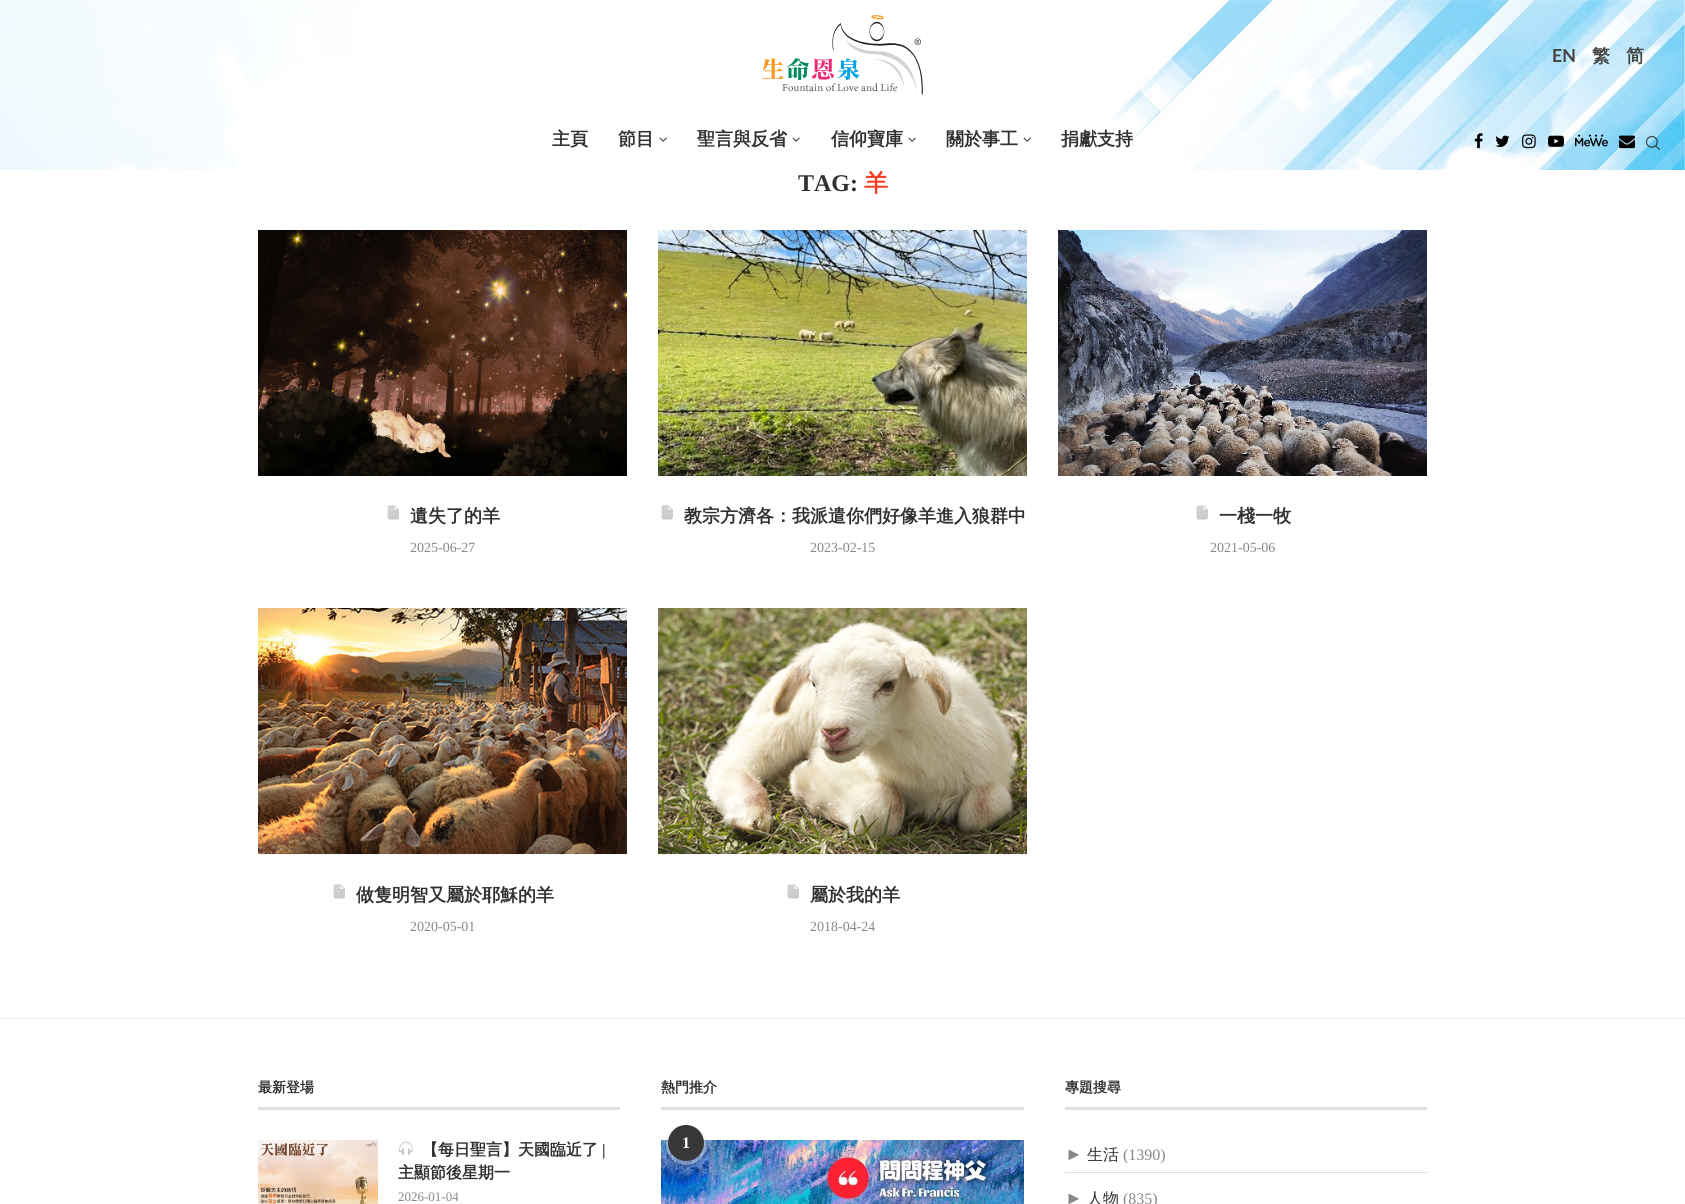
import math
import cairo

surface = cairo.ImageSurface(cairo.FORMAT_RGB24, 1685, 1204)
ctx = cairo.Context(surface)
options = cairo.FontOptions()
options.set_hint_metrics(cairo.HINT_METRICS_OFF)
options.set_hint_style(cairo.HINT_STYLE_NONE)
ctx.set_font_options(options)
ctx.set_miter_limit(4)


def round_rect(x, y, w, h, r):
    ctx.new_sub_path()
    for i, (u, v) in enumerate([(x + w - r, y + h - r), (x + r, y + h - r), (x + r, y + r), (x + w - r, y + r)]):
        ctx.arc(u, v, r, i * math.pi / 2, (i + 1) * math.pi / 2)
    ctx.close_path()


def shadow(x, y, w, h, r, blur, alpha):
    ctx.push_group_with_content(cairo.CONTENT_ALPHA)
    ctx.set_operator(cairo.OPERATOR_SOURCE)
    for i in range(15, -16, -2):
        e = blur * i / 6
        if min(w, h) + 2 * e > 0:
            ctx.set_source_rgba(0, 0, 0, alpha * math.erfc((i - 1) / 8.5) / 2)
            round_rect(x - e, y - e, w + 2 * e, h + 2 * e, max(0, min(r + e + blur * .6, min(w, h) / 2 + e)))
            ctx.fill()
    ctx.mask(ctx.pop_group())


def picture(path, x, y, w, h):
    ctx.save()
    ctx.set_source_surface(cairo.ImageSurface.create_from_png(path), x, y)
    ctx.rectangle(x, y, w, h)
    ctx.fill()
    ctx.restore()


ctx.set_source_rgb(1, 1, 1)
ctx.paint()
picture("img1.png", 0, 0, 1685, 170)
picture("img2.png", 762, 15, 161, 80)
ctx.select_font_face("Lato", cairo.FONT_SLANT_NORMAL, cairo.FONT_WEIGHT_BOLD)
ctx.set_font_size(18)
ctx.set_source_rgb(0.267, 0.267, 0.267)
ctx.move_to(1552, 62)
ctx.show_text("EN")
ctx.select_font_face("WenQuanYi Zen Hei", cairo.FONT_SLANT_NORMAL, cairo.FONT_WEIGHT_BOLD)
ctx.move_to(1592, 62)
ctx.show_text("繁")
ctx.move_to(1626, 62)
ctx.show_text("简")
ctx.set_source_rgb(0.192, 0.192, 0.192)
ctx.move_to(552, 145)
ctx.show_text("主頁")
ctx.move_to(618, 145)
ctx.show_text("節目")
picture("img3.png", 659, 137, 8, 5)
ctx.move_to(697, 145)
ctx.show_text("聖言與反省")
picture("img3.png", 792, 137, 8, 5)
ctx.move_to(831, 145)
ctx.show_text("信仰寶庫")
picture("img3.png", 908, 137, 8, 5)
ctx.move_to(946, 145)
ctx.show_text("關於事工")
picture("img3.png", 1023, 137, 8, 5)
ctx.move_to(1061, 145)
ctx.show_text("捐獻支持")
picture("img4.png", 1474, 133, 9, 16)
picture("img5.png", 1495, 135, 15, 12)
picture("img6.png", 1522, 134, 14, 15)
picture("img7.png", 1548, 135, 16, 12)
picture("img8.png", 1575, 134, 33, 13)
picture("img9.png", 1619, 135, 16, 14)
picture("img10.png", 1646, 136, 14, 14)
ctx.select_font_face("Liberation Serif", cairo.FONT_SLANT_NORMAL, cairo.FONT_WEIGHT_BOLD)
ctx.set_font_size(24)
ctx.move_to(798, 191)
ctx.show_text("TAG:")
ctx.select_font_face("WenQuanYi Zen Hei", cairo.FONT_SLANT_NORMAL, cairo.FONT_WEIGHT_BOLD)
ctx.set_source_rgb(0.976, 0.247, 0.137)
ctx.move_to(864, 191)
ctx.show_text("羊")
picture("img11.png", 258, 230, 369, 246)
picture("img12.png", 387, 505, 12, 15)
ctx.set_font_size(18)
ctx.set_source_rgb(0.192, 0.192, 0.192)
ctx.move_to(410, 522)
ctx.show_text("遺失了的羊")
ctx.select_font_face("Liberation Serif")
ctx.set_font_size(14)
ctx.set_source_rgb(0.533, 0.533, 0.533)
ctx.move_to(410, 552)
ctx.show_text("2025-06-27")
picture("img13.png", 658, 230, 369, 246)
picture("img12.png", 661, 505, 12, 15)
ctx.select_font_face("WenQuanYi Zen Hei", cairo.FONT_SLANT_NORMAL, cairo.FONT_WEIGHT_BOLD)
ctx.set_font_size(18)
ctx.set_source_rgb(0.192, 0.192, 0.192)
ctx.move_to(684, 522)
ctx.show_text("教宗方濟各：我派遣你們好像羊進入狼群中")
ctx.select_font_face("Liberation Serif")
ctx.set_font_size(14)
ctx.set_source_rgb(0.533, 0.533, 0.533)
ctx.move_to(810, 552)
ctx.show_text("2023-02-15")
picture("img14.png", 1058, 230, 369, 246)
picture("img12.png", 1196, 505, 12, 15)
ctx.select_font_face("WenQuanYi Zen Hei", cairo.FONT_SLANT_NORMAL, cairo.FONT_WEIGHT_BOLD)
ctx.set_font_size(18)
ctx.set_source_rgb(0.192, 0.192, 0.192)
ctx.move_to(1219, 522)
ctx.show_text("一棧一牧")
ctx.select_font_face("Liberation Serif")
ctx.set_font_size(14)
ctx.set_source_rgb(0.533, 0.533, 0.533)
ctx.move_to(1210, 552)
ctx.show_text("2021-05-06")
ctx.set_source_rgb(0.961, 0.961, 0.961)
ctx.rectangle(258, 854, 369, 1)
ctx.fill()
picture("img15.png", 258, 608, 369, 246)
picture("img12.png", 333, 884, 12, 15)
ctx.select_font_face("WenQuanYi Zen Hei", cairo.FONT_SLANT_NORMAL, cairo.FONT_WEIGHT_BOLD)
ctx.set_font_size(18)
ctx.set_source_rgb(0.192, 0.192, 0.192)
ctx.move_to(356, 901)
ctx.show_text("做隻明智又屬於耶穌的羊")
ctx.select_font_face("Liberation Serif")
ctx.set_font_size(14)
ctx.set_source_rgb(0.533, 0.533, 0.533)
ctx.move_to(410, 931)
ctx.show_text("2020-05-01")
ctx.set_source_rgb(0.961, 0.961, 0.961)
ctx.rectangle(658, 854, 369, 1)
ctx.fill()
picture("img16.png", 658, 608, 369, 246)
picture("img12.png", 787, 884, 12, 15)
ctx.select_font_face("WenQuanYi Zen Hei", cairo.FONT_SLANT_NORMAL, cairo.FONT_WEIGHT_BOLD)
ctx.set_font_size(18)
ctx.set_source_rgb(0.192, 0.192, 0.192)
ctx.move_to(810, 901)
ctx.show_text("屬於我的羊")
ctx.select_font_face("Liberation Serif")
ctx.set_font_size(14)
ctx.set_source_rgb(0.533, 0.533, 0.533)
ctx.move_to(810, 931)
ctx.show_text("2018-04-24")
ctx.set_source_rgb(0.925, 0.925, 0.925)
ctx.rectangle(0, 1018, 1685, 1)
ctx.fill()
ctx.set_source_rgb(0.878, 0.878, 0.878)
ctx.rectangle(258, 1107, 362, 3)
ctx.fill()
ctx.select_font_face("WenQuanYi Zen Hei", cairo.FONT_SLANT_NORMAL, cairo.FONT_WEIGHT_BOLD)
ctx.set_source_rgb(0.192, 0.192, 0.192)
ctx.move_to(258, 1092)
ctx.show_text("最新登場")
picture("img17.png", 258, 1140, 120, 64)
picture("img18.png", 399, 1141, 14, 14)
ctx.set_font_size(16)
ctx.move_to(422, 1155)
ctx.show_text("【每日聖言】天國臨近了")
ctx.select_font_face("Liberation Serif", cairo.FONT_SLANT_NORMAL, cairo.FONT_WEIGHT_BOLD)
ctx.move_to(602, 1155)
ctx.show_text("|")
ctx.select_font_face("WenQuanYi Zen Hei", cairo.FONT_SLANT_NORMAL, cairo.FONT_WEIGHT_BOLD)
ctx.move_to(398, 1178)
ctx.show_text("主顯節後星期一")
ctx.select_font_face("Liberation Serif")
ctx.set_font_size(13)
ctx.set_source_rgb(0.533, 0.533, 0.533)
ctx.move_to(398, 1201)
ctx.show_text("2026-01-04")
ctx.set_source_rgb(0.878, 0.878, 0.878)
ctx.rectangle(661, 1107, 363, 3)
ctx.fill()
ctx.select_font_face("WenQuanYi Zen Hei", cairo.FONT_SLANT_NORMAL, cairo.FONT_WEIGHT_BOLD)
ctx.set_font_size(14)
ctx.set_source_rgb(0.192, 0.192, 0.192)
ctx.move_to(661, 1092)
ctx.show_text("熱門推介")
picture("img19.png", 661, 1140, 363, 64)
ctx.save()
ctx.set_fill_rule(cairo.FILL_RULE_EVEN_ODD)
ctx.new_path()
ctx.move_to(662, 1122)
ctx.line_to(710, 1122)
ctx.line_to(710, 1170)
ctx.line_to(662, 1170)
ctx.close_path()
ctx.move_to(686, 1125)
ctx.curve_to(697, 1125, 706, 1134, 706, 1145)
ctx.curve_to(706, 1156, 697, 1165, 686, 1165)
ctx.curve_to(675, 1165, 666, 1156, 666, 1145)
ctx.curve_to(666, 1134, 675, 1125, 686, 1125)
ctx.close_path()
ctx.clip()
ctx.set_source_rgb(0, 0, 0)
shadow(666, 1126, 40, 40, 20, 1, 0.25)
ctx.restore()
ctx.set_source_rgba(1, 1, 1, 0.3)
ctx.arc(686, 1145, 20, 0, 2 * math.pi)
ctx.fill()
ctx.set_source_rgb(0.22, 0.22, 0.22)
ctx.arc(686, 1143, 18, 0, 2 * math.pi)
ctx.fill()
ctx.select_font_face("Liberation Serif", cairo.FONT_SLANT_NORMAL, cairo.FONT_WEIGHT_BOLD)
ctx.set_font_size(16)
ctx.set_source_rgb(1, 1, 1)
ctx.move_to(682, 1148)
ctx.show_text("1")
ctx.set_source_rgb(0.878, 0.878, 0.878)
ctx.rectangle(1065, 1107, 362, 3)
ctx.fill()
ctx.select_font_face("WenQuanYi Zen Hei", cairo.FONT_SLANT_NORMAL, cairo.FONT_WEIGHT_BOLD)
ctx.set_font_size(14)
ctx.set_source_rgb(0.192, 0.192, 0.192)
ctx.move_to(1065, 1092)
ctx.show_text("專題搜尋")
ctx.set_source_rgb(0.871, 0.871, 0.871)
ctx.rectangle(1065, 1172, 362, 1)
ctx.fill()
ctx.select_font_face("Liberation Serif")
ctx.set_font_size(18)
ctx.set_source_rgb(0.533, 0.533, 0.533)
ctx.move_to(1065, 1160)
ctx.show_text("►")
ctx.select_font_face("WenQuanYi Zen Hei Medium")
ctx.set_font_size(16)
ctx.set_source_rgb(0.192, 0.192, 0.192)
ctx.move_to(1087, 1160)
ctx.show_text("生活")
ctx.select_font_face("Liberation Serif")
ctx.set_source_rgb(0.533, 0.533, 0.533)
ctx.move_to(1123, 1160)
ctx.show_text("(1390)")
ctx.set_font_size(18)
ctx.move_to(1065, 1204)
ctx.show_text("►")
ctx.select_font_face("WenQuanYi Zen Hei Medium")
ctx.set_font_size(16)
ctx.set_source_rgb(0.192, 0.192, 0.192)
ctx.move_to(1087, 1204)
ctx.show_text("人物")
ctx.select_font_face("Liberation Serif")
ctx.set_source_rgb(0.533, 0.533, 0.533)
ctx.move_to(1123, 1204)
ctx.show_text("(835)")
surface.write_to_png("page.png")
